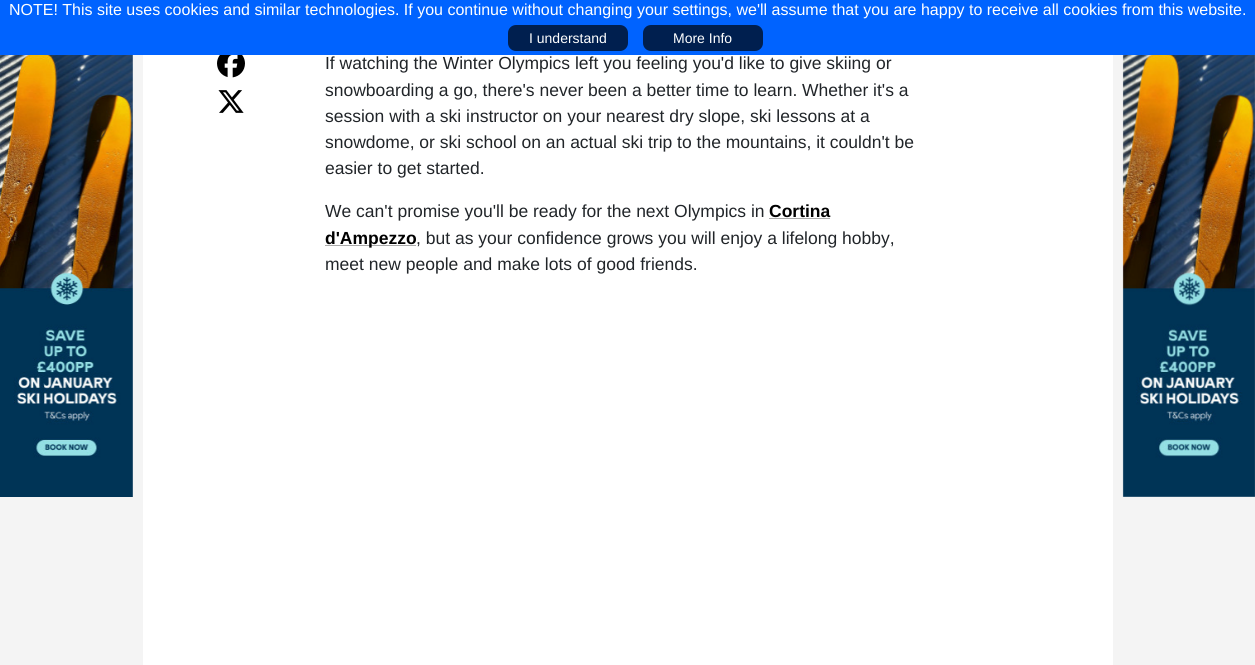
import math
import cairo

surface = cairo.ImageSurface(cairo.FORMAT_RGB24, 1255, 665)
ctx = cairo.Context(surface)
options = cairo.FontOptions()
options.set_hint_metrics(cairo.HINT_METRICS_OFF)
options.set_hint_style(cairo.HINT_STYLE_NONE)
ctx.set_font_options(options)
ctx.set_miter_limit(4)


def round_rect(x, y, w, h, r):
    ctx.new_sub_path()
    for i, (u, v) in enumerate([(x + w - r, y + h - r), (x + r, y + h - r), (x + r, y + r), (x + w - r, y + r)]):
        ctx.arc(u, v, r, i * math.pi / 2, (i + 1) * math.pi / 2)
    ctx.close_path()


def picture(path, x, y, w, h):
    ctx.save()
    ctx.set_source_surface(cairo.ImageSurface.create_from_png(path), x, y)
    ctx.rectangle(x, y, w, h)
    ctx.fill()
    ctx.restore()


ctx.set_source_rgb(0.957, 0.957, 0.957)
ctx.paint()
ctx.set_source_rgb(0, 0.388, 1)
ctx.rectangle(0, 0, 1255, 55)
ctx.fill()
ctx.select_font_face("Liberation Sans")
ctx.set_font_size(16)
ctx.set_source_rgb(1, 1, 1)
ctx.move_to(9, 15)
ctx.show_text("NOTE! This site uses cookies and similar technologies. If you continue without changing your settings, we'll assume that you are happy to receive all cookies from this website.")
ctx.set_source_rgb(0, 0.122, 0.31)
round_rect(508, 25, 120, 26, 8)
ctx.fill()
ctx.set_font_size(14)
ctx.set_source_rgb(1, 1, 1)
ctx.move_to(529, 43)
ctx.show_text("I understand")
ctx.set_source_rgb(0, 0.122, 0.31)
round_rect(643, 25, 120, 26, 8)
ctx.fill()
ctx.set_source_rgb(1, 1, 1)
ctx.move_to(673, 43)
ctx.show_text("More Info")
picture("img1.png", 0, 55, 133, 442)
ctx.rectangle(143, 55, 970, 610)
ctx.fill()
picture("img2.png", 217, 55, 28, 23)
picture("img3.png", 218, 90, 26, 23)
ctx.set_font_size(17.5)
ctx.set_source_rgb(0.129, 0.145, 0.161)
ctx.move_to(325, 69)
ctx.show_text("If watching the Winter Olympics left you feeling you'd like to give skiing or")
ctx.move_to(325, 96)
ctx.show_text("snowboarding a go, there's never been a better time to learn. Whether it's a")
ctx.move_to(325, 122)
ctx.show_text("session with a ski instructor on your nearest dry slope, ski lessons at a")
ctx.move_to(325, 148)
ctx.show_text("snowdome, or ski school on an actual ski trip to the mountains, it couldn't be")
ctx.move_to(325, 174)
ctx.show_text("easier to get started.")
ctx.move_to(325, 217)
ctx.show_text("We can't promise you'll be ready for the next Olympics in")
ctx.select_font_face("Liberation Sans", cairo.FONT_SLANT_NORMAL, cairo.FONT_WEIGHT_BOLD)
ctx.set_source_rgb(0, 0, 0)
ctx.move_to(769, 217)
ctx.show_text("Cortina")
ctx.set_source_rgb(0.667, 0.667, 0.667)
ctx.rectangle(769, 218, 61, 1)
ctx.fill()
ctx.rectangle(325, 245, 91, 1)
ctx.fill()
ctx.set_source_rgb(0, 0, 0)
ctx.move_to(325, 244)
ctx.show_text("d'Ampezzo")
ctx.select_font_face("Liberation Sans")
ctx.set_source_rgb(0.129, 0.145, 0.161)
ctx.move_to(416, 244)
ctx.show_text(", but as your confidence grows you will enjoy a lifelong hobby,")
ctx.move_to(325, 270)
ctx.show_text("meet new people and make lots of good friends.")
picture("img4.png", 1122, 55, 133, 442)
surface.write_to_png("page.png")
